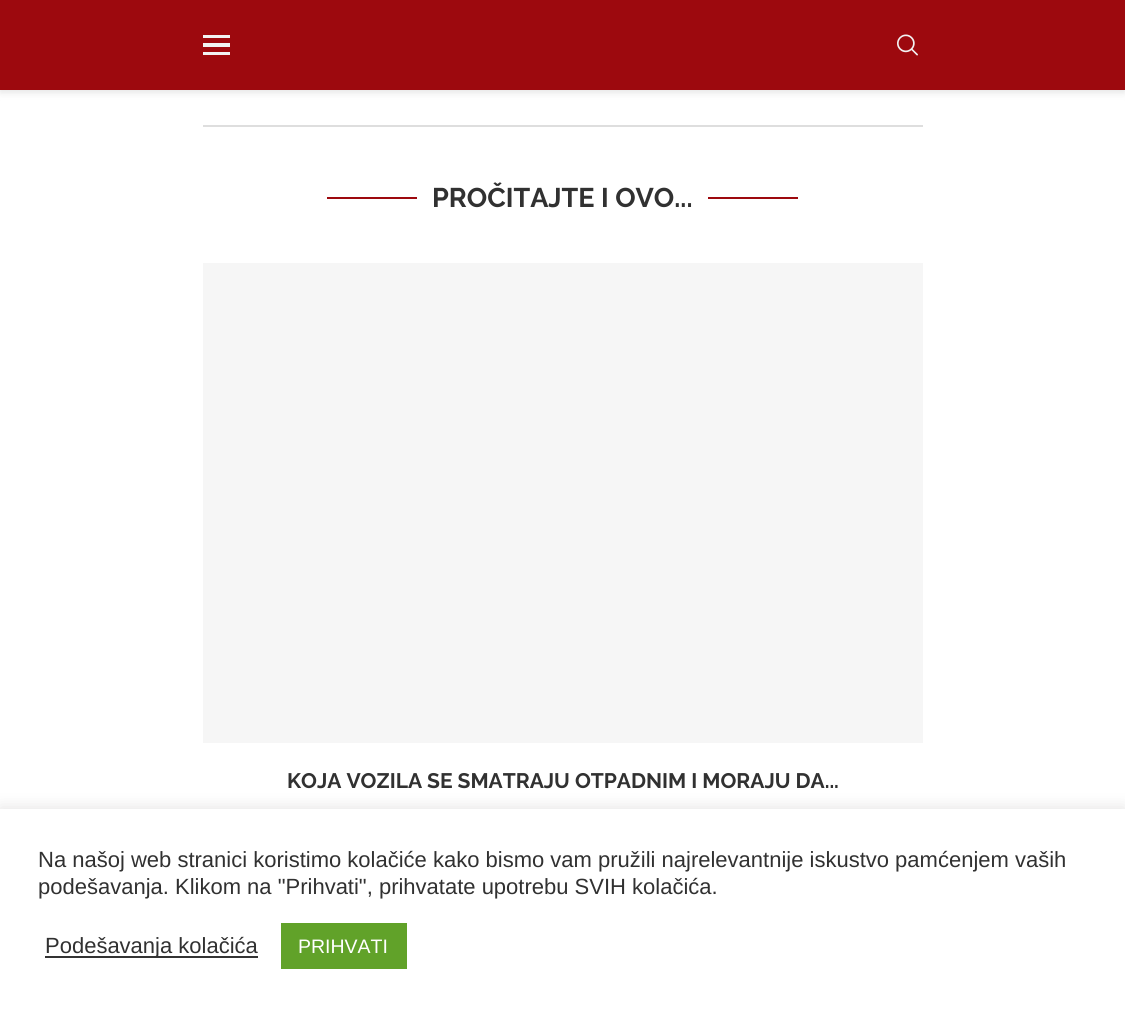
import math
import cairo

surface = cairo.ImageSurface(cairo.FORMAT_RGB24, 1125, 1014)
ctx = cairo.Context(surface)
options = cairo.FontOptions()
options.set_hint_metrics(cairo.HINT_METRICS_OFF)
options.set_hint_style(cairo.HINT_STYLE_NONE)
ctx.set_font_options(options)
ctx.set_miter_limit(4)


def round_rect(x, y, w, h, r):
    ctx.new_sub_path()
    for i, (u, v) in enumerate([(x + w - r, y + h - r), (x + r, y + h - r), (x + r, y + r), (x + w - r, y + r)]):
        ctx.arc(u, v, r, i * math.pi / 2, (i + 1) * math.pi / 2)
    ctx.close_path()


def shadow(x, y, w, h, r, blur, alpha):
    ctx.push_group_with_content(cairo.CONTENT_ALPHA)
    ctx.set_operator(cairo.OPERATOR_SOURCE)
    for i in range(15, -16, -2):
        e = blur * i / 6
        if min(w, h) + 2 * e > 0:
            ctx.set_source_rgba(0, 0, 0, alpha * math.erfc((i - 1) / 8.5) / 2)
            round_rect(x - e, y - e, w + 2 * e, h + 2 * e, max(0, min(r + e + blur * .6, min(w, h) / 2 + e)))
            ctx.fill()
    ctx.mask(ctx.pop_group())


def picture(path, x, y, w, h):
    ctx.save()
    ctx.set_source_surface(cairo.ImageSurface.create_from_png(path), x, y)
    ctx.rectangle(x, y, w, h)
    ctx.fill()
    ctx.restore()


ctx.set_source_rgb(1, 1, 1)
ctx.paint()
ctx.set_source_rgb(0.745, 0.745, 0.745)
shadow(0, 2, 1125, 90, 0, 4, 0.46)
ctx.set_source_rgb(0.616, 0.039, 0.055)
ctx.rectangle(0, 0, 1125, 90)
ctx.fill()
ctx.set_source_rgb(0.949, 0.949, 0.949)
ctx.rectangle(203, 35, 27, 3)
ctx.fill()
ctx.rectangle(203, 43, 27, 4)
ctx.fill()
ctx.rectangle(203, 52, 27, 3)
ctx.fill()
picture("img1.png", 897, 34, 21, 22)
ctx.set_source_rgb(0.871, 0.871, 0.871)
ctx.rectangle(203, 125, 720, 2)
ctx.fill()
ctx.set_source_rgb(0.616, 0.039, 0.055)
ctx.rectangle(327, 197, 90, 2)
ctx.fill()
ctx.select_font_face("Raleway", cairo.FONT_SLANT_NORMAL, cairo.FONT_WEIGHT_BOLD)
ctx.set_font_size(27)
ctx.set_source_rgb(0.192, 0.192, 0.192)
ctx.move_to(432, 207)
ctx.show_text("PROČITAJTE I OVO...")
ctx.set_source_rgb(0.616, 0.039, 0.055)
ctx.rectangle(708, 197, 90, 2)
ctx.fill()
ctx.set_source_rgb(0.961, 0.961, 0.961)
ctx.rectangle(203, 263, 720, 480)
ctx.fill()
ctx.set_font_size(21)
ctx.set_source_rgb(0.192, 0.192, 0.192)
ctx.move_to(287, 788)
ctx.show_text("KOJA VOZILA SE SMATRAJU OTPADNIM I MORAJU DA...")
ctx.set_source_rgb(0.675, 0.671, 0.671)
shadow(0, 807, 1125, 206, 0, 7.5, 0.3)
ctx.set_source_rgb(1, 1, 1)
ctx.rectangle(0, 809, 1125, 205)
ctx.fill()
ctx.select_font_face("Liberation Sans")
ctx.set_font_size(22)
ctx.set_source_rgb(0.192, 0.192, 0.192)
ctx.move_to(38, 867)
ctx.show_text("Na našoj web stranici koristimo kolačiće kako bismo vam pružili najrelevantnije iskustvo pamćenjem vaših")
ctx.move_to(38, 894)
ctx.show_text("podešavanja. Klikom na \"Prihvati\", prihvatate upotrebu SVIH kolačića.")
ctx.set_source_rgb(0.2, 0.2, 0.2)
ctx.rectangle(45, 956, 213, 2)
ctx.fill()
ctx.set_source_rgb(0.192, 0.192, 0.192)
ctx.move_to(45, 953)
ctx.show_text("Podešavanja kolačića")
ctx.set_source_rgb(0.38, 0.635, 0.161)
ctx.rectangle(281, 923, 126, 46)
ctx.fill()
ctx.set_font_size(19.5)
ctx.set_source_rgb(1, 1, 1)
ctx.move_to(298, 953)
ctx.show_text("PRIHVATI")
surface.write_to_png("page.png")
